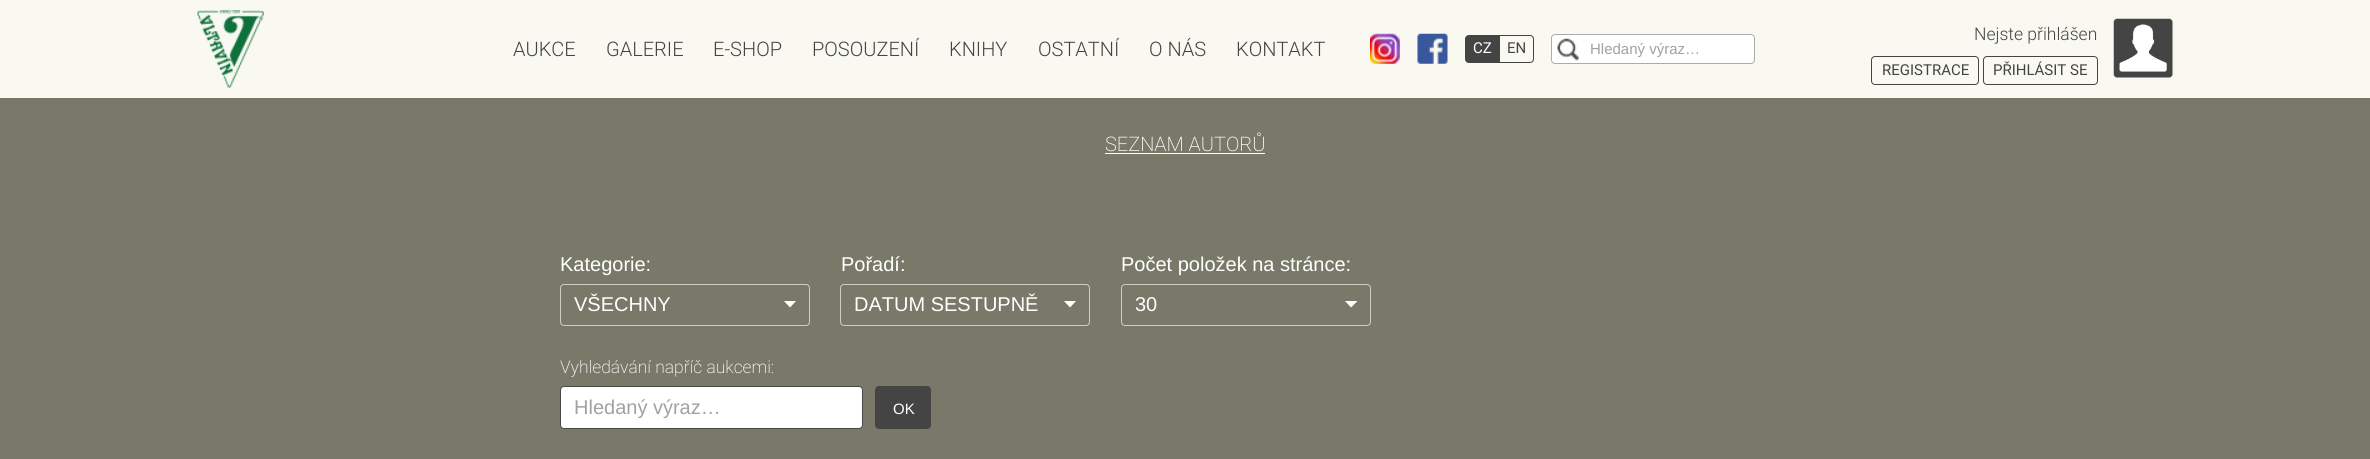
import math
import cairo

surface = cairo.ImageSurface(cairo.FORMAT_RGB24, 2370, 459)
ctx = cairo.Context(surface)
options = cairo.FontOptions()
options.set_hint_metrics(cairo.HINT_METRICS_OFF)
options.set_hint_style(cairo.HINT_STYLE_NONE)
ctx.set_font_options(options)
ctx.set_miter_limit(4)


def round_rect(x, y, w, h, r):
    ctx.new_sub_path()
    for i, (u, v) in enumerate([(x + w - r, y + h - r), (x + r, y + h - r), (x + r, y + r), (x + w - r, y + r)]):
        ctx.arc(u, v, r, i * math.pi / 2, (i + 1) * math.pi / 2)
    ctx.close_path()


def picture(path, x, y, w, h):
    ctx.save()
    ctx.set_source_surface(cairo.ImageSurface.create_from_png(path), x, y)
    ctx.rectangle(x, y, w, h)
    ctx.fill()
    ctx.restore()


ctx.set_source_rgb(0.475, 0.475, 0.416)
ctx.paint()
ctx.set_source_rgb(0.976, 0.976, 0.949)
ctx.rectangle(0, 0, 2370, 98)
ctx.fill()
picture("img1.png", 197, 10, 67, 78)
ctx.select_font_face("Roboto Light")
ctx.set_font_size(20)
ctx.set_source_rgb(0.267, 0.267, 0.267)
ctx.move_to(513, 56)
ctx.show_text("AUKCE")
ctx.move_to(606, 56)
ctx.show_text("GALERIE")
ctx.move_to(713, 56)
ctx.show_text("E-SHOP")
ctx.move_to(812, 56)
ctx.show_text("POSOUZENÍ")
ctx.move_to(949, 56)
ctx.show_text("KNIHY")
ctx.move_to(1038, 56)
ctx.show_text("OSTATNÍ")
ctx.move_to(1149, 56)
ctx.show_text("O NÁS")
ctx.move_to(1236, 56)
ctx.show_text("KONTAKT")
picture("img2.png", 1370, 33, 30, 31)
picture("img3.png", 1417, 33, 31, 31)
ctx.new_path()
ctx.move_to(1469, 35.5)
ctx.line_to(1498.5, 35.5)
ctx.line_to(1498.5, 62.5)
ctx.line_to(1469, 62.5)
ctx.curve_to(1467, 62.5, 1465.5, 61, 1465.5, 59)
ctx.line_to(1465.5, 39)
ctx.curve_to(1465.5, 37, 1467, 35.5, 1469, 35.5)
ctx.close_path()
ctx.fill_preserve()
ctx.set_line_width(1)
ctx.stroke()
ctx.select_font_face("Roboto")
ctx.set_font_size(15)
ctx.set_source_rgb(1, 1, 1)
ctx.move_to(1473, 53)
ctx.show_text("CZ")
ctx.new_path()
ctx.move_to(1499.5, 35.5)
ctx.line_to(1530, 35.5)
ctx.curve_to(1532, 35.5, 1533.5, 37, 1533.5, 39)
ctx.line_to(1533.5, 59)
ctx.curve_to(1533.5, 61, 1532, 62.5, 1530, 62.5)
ctx.line_to(1499.5, 62.5)
ctx.close_path()
ctx.set_source_rgb(0.267, 0.267, 0.267)
ctx.stroke()
ctx.move_to(1507, 53)
ctx.show_text("EN")
ctx.set_source_rgb(1, 1, 1)
round_rect(1551.5, 34.5, 203, 29, 3.5)
ctx.fill_preserve()
ctx.set_source_rgb(0.671, 0.671, 0.671)
ctx.stroke()
picture("img4.png", 1557, 38, 22, 23)
ctx.select_font_face("Liberation Sans")
ctx.set_source_rgb(0.635, 0.635, 0.635)
ctx.move_to(1590, 54)
ctx.show_text("Hledaný výraz…")
ctx.select_font_face("Roboto Light")
ctx.set_font_size(17.5)
ctx.set_source_rgb(0.267, 0.267, 0.267)
ctx.move_to(1974, 40)
ctx.show_text("Nejste přihlášen")
round_rect(1871.5, 56.5, 107, 28, 3.5)
ctx.stroke()
ctx.select_font_face("Roboto")
ctx.set_font_size(15)
ctx.move_to(1882, 75)
ctx.show_text("REGISTRACE")
round_rect(1983.5, 56.5, 114, 28, 3.5)
ctx.stroke()
ctx.move_to(1993, 75)
ctx.show_text("PŘIHLÁSIT SE")
picture("img5.png", 2113, 18, 60, 60)
ctx.select_font_face("Roboto ExtraLight")
ctx.set_font_size(20)
ctx.set_source_rgb(1, 1, 1)
ctx.move_to(1105, 151)
ctx.show_text("SEZNAM AUTORŮ")
ctx.rectangle(1105, 153, 160, 1)
ctx.fill()
ctx.select_font_face("Liberation Sans")
ctx.move_to(560, 271)
ctx.show_text("Kategorie:")
round_rect(560.5, 284.5, 249, 41, 3.5)
ctx.set_source_rgb(0.808, 0.808, 0.749)
ctx.stroke()
ctx.set_source_rgb(1, 1, 1)
ctx.move_to(574, 311)
ctx.show_text("VŠECHNY")
ctx.new_path()
ctx.move_to(784, 301)
ctx.line_to(796, 301)
ctx.line_to(790, 307.5)
ctx.close_path()
ctx.fill()
ctx.move_to(841, 271)
ctx.show_text("Pořadí:")
round_rect(840.5, 284.5, 249, 41, 3.5)
ctx.set_source_rgb(0.808, 0.808, 0.749)
ctx.stroke()
ctx.set_source_rgb(1, 1, 1)
ctx.move_to(854, 311)
ctx.show_text("DATUM SESTUPNĚ")
ctx.new_path()
ctx.move_to(1064, 301)
ctx.line_to(1076, 301)
ctx.line_to(1070, 307.5)
ctx.close_path()
ctx.fill()
ctx.move_to(1121, 271)
ctx.show_text("Počet položek na stránce:")
round_rect(1121.5, 284.5, 249, 41, 3.5)
ctx.set_source_rgb(0.808, 0.808, 0.749)
ctx.stroke()
ctx.set_source_rgb(1, 1, 1)
ctx.move_to(1135, 311)
ctx.show_text("30")
ctx.new_path()
ctx.move_to(1345, 301)
ctx.line_to(1357.5, 301)
ctx.line_to(1351, 307.5)
ctx.close_path()
ctx.fill()
ctx.select_font_face("Roboto ExtraLight")
ctx.set_font_size(17.5)
ctx.move_to(560, 373)
ctx.show_text("Vyhledávání napříč aukcemi:")
round_rect(560.5, 386.5, 302, 42, 3.5)
ctx.fill_preserve()
ctx.set_source_rgb(0.286, 0.286, 0.255)
ctx.stroke()
ctx.select_font_face("Liberation Sans")
ctx.set_font_size(20)
ctx.set_source_rgb(0.635, 0.635, 0.635)
ctx.move_to(574, 414)
ctx.show_text("Hledaný výraz…")
ctx.set_source_rgb(0.267, 0.267, 0.267)
round_rect(875.5, 386.5, 55, 42, 3.5)
ctx.fill_preserve()
ctx.stroke()
ctx.set_font_size(15)
ctx.set_source_rgb(1, 1, 1)
ctx.move_to(893, 414)
ctx.show_text("OK")
surface.write_to_png("page.png")
